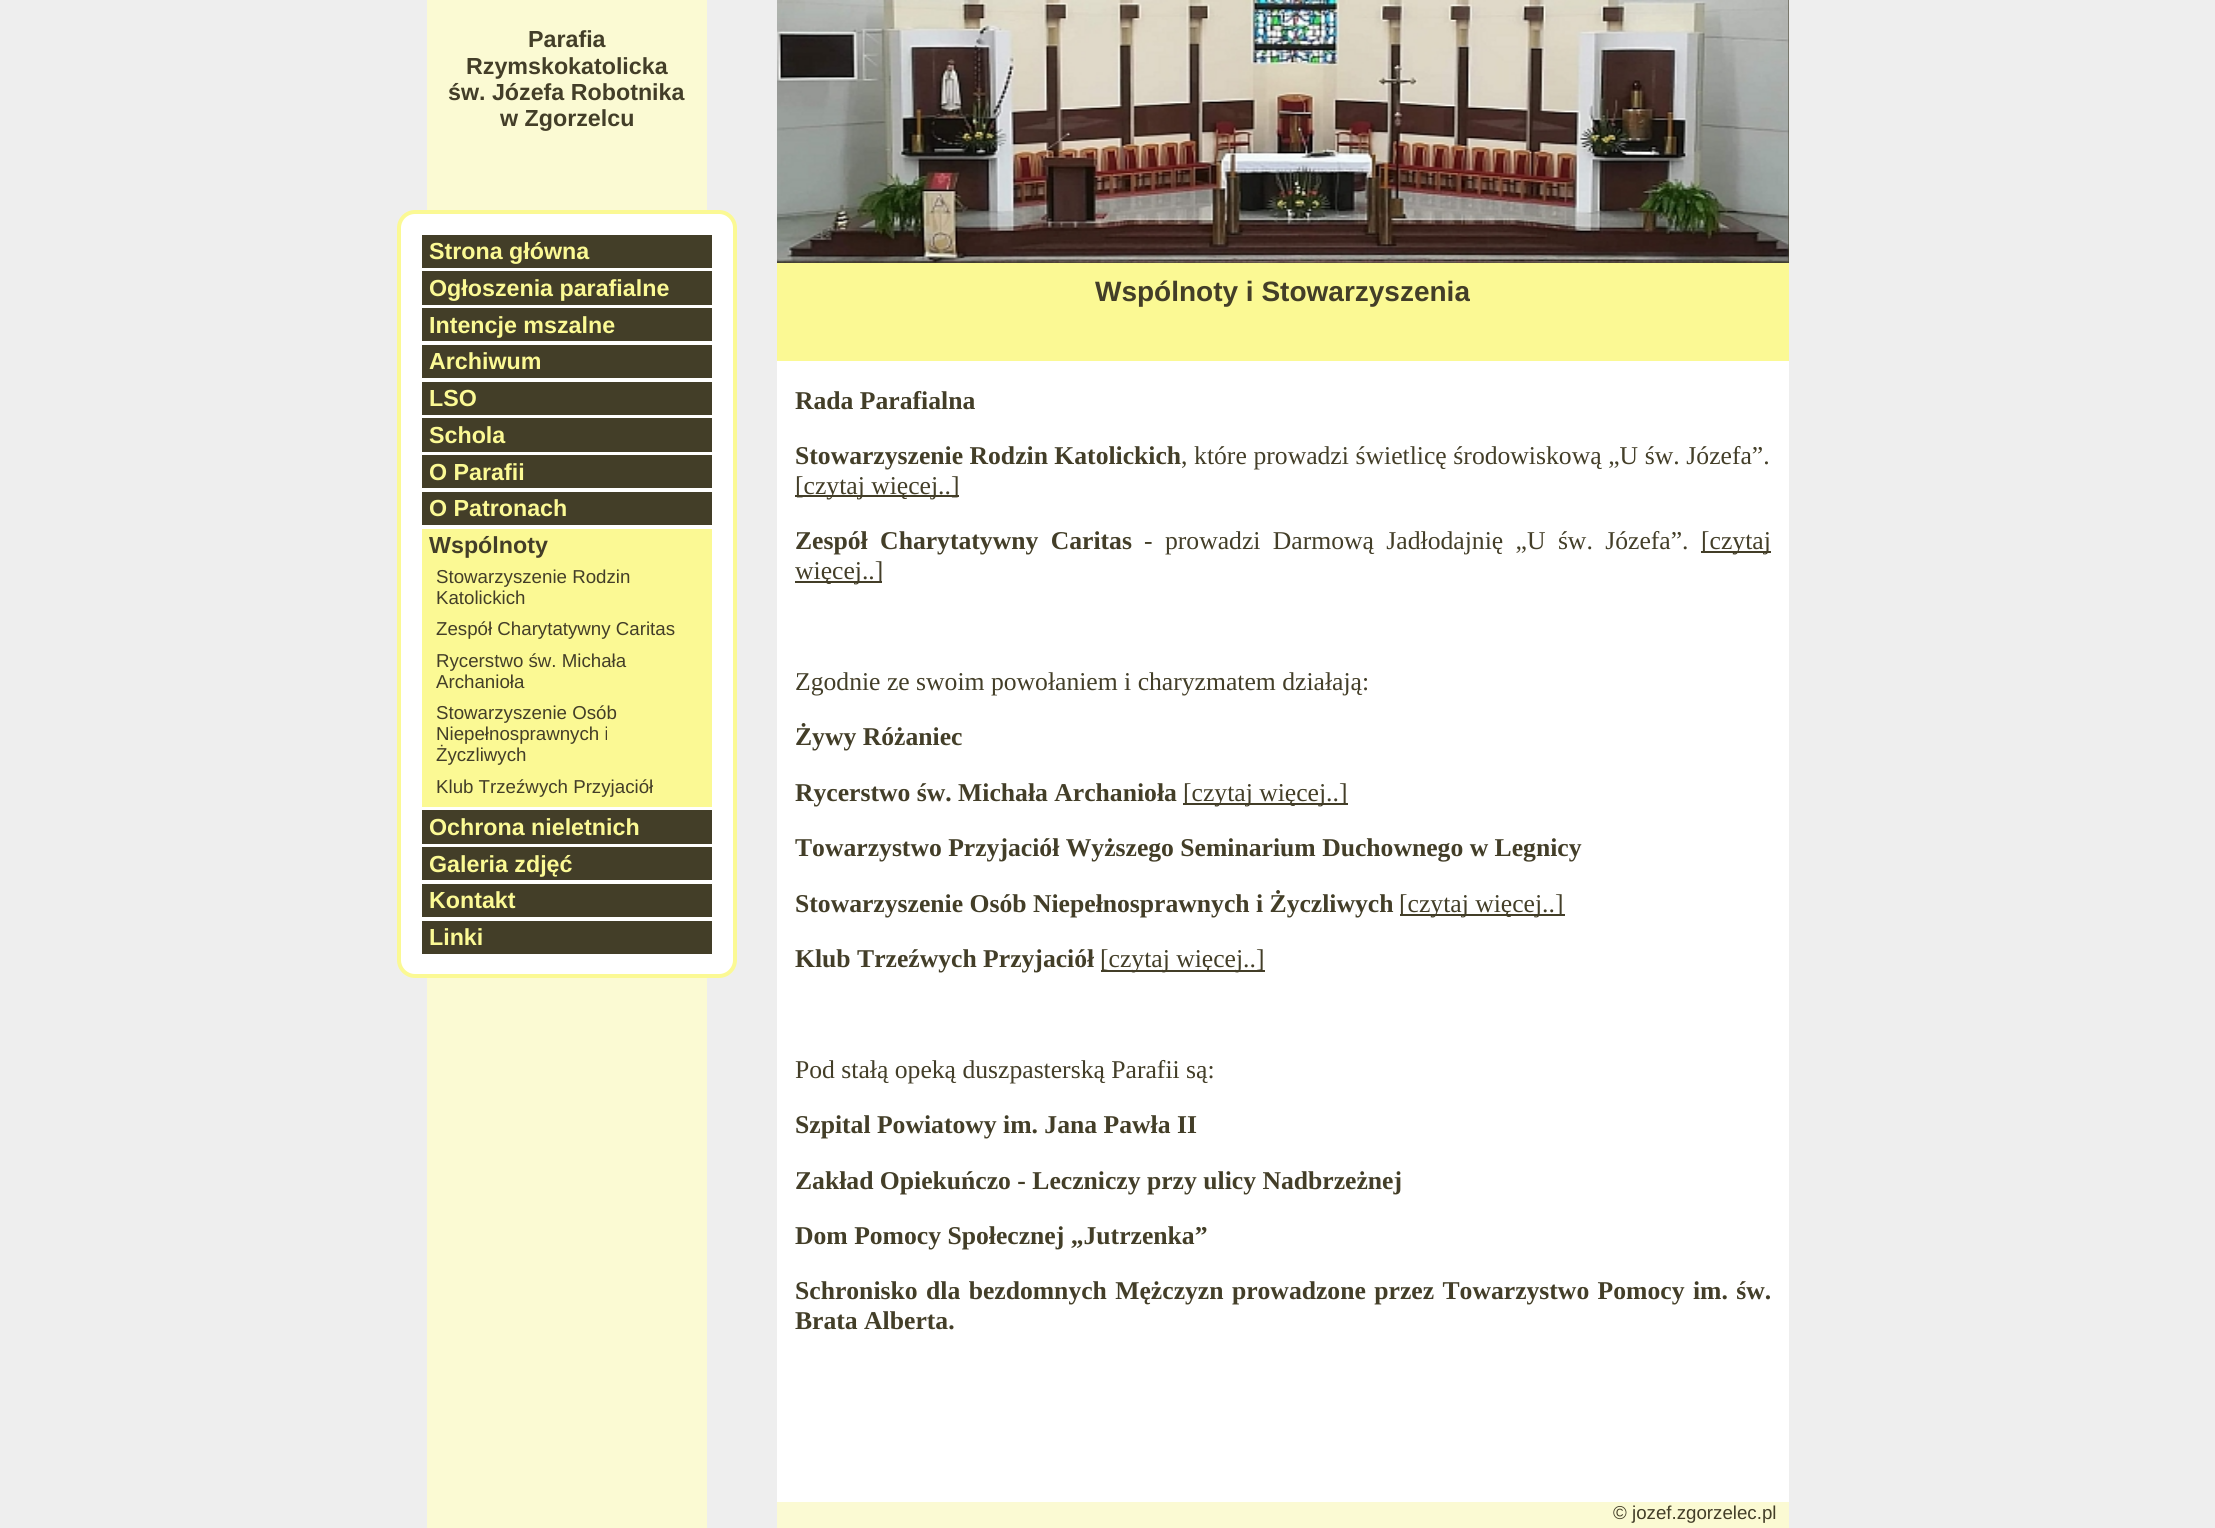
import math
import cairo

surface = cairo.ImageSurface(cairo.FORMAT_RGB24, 2215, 1528)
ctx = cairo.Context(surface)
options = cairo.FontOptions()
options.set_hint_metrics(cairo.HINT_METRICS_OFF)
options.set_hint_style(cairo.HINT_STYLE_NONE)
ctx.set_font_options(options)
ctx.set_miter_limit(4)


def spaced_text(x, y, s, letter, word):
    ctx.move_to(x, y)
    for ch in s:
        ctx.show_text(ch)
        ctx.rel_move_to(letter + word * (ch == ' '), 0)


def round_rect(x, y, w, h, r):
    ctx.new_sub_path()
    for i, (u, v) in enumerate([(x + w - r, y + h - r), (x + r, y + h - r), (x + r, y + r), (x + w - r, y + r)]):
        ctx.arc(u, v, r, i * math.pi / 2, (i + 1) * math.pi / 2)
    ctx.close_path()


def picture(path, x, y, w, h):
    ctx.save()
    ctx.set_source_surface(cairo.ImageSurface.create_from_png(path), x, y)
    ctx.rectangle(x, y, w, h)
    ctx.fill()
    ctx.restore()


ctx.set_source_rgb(0.933, 0.933, 0.933)
ctx.paint()
ctx.set_source_rgb(0.984, 0.98, 0.827)
ctx.rectangle(427, 0, 280, 1528)
ctx.fill()
ctx.select_font_face("Liberation Sans", cairo.FONT_SLANT_NORMAL, cairo.FONT_WEIGHT_BOLD)
ctx.set_font_size(23.25)
ctx.set_source_rgb(0.263, 0.243, 0.157)
ctx.move_to(528, 47)
ctx.show_text("Parafia")
ctx.move_to(466, 74)
ctx.show_text("Rzymskokatolicka")
ctx.move_to(448, 100)
ctx.show_text("św. Józefa Robotnika")
ctx.move_to(500, 126)
ctx.show_text("w Zgorzelcu")
ctx.set_source_rgb(1, 1, 1)
round_rect(399, 212, 336, 764, 16)
ctx.fill_preserve()
ctx.set_source_rgb(0.984, 0.976, 0.58)
ctx.set_line_width(4)
ctx.stroke()
ctx.set_source_rgb(0.263, 0.243, 0.157)
ctx.rectangle(422, 235, 290, 33)
ctx.fill()
ctx.set_source_rgb(0.984, 0.976, 0.58)
ctx.move_to(429, 259)
ctx.show_text("Strona główna")
ctx.set_source_rgb(0.263, 0.243, 0.157)
ctx.rectangle(422, 271, 290, 34)
ctx.fill()
ctx.set_source_rgb(0.984, 0.976, 0.58)
ctx.move_to(429, 296)
ctx.show_text("Ogłoszenia parafialne")
ctx.set_source_rgb(0.263, 0.243, 0.157)
ctx.rectangle(422, 308, 290, 33)
ctx.fill()
ctx.set_source_rgb(0.984, 0.976, 0.58)
ctx.move_to(429, 333)
ctx.show_text("Intencje mszalne")
ctx.set_source_rgb(0.263, 0.243, 0.157)
ctx.rectangle(422, 345, 290, 33)
ctx.fill()
ctx.set_source_rgb(0.984, 0.976, 0.58)
ctx.move_to(429, 369)
ctx.show_text("Archiwum")
ctx.set_source_rgb(0.263, 0.243, 0.157)
ctx.rectangle(422, 382, 290, 33)
ctx.fill()
ctx.set_source_rgb(0.984, 0.976, 0.58)
ctx.move_to(429, 406)
ctx.show_text("LSO")
ctx.set_source_rgb(0.263, 0.243, 0.157)
ctx.rectangle(422, 418, 290, 34)
ctx.fill()
ctx.set_source_rgb(0.984, 0.976, 0.58)
ctx.move_to(429, 443)
ctx.show_text("Schola")
ctx.set_source_rgb(0.263, 0.243, 0.157)
ctx.rectangle(422, 455, 290, 33)
ctx.fill()
ctx.set_source_rgb(0.984, 0.976, 0.58)
ctx.move_to(429, 480)
ctx.show_text("O Parafii")
ctx.set_source_rgb(0.263, 0.243, 0.157)
ctx.rectangle(422, 492, 290, 33)
ctx.fill()
ctx.set_source_rgb(0.984, 0.976, 0.58)
ctx.move_to(429, 516)
ctx.show_text("O Patronach")
ctx.rectangle(422, 529, 290, 278)
ctx.fill()
ctx.set_source_rgb(0.263, 0.243, 0.157)
ctx.move_to(429, 553)
ctx.show_text("Wspólnoty")
ctx.select_font_face("Liberation Sans")
ctx.set_font_size(18.7)
ctx.move_to(436, 583)
ctx.show_text("Stowarzyszenie Rodzin")
ctx.move_to(436, 604)
ctx.show_text("Katolickich")
ctx.move_to(436, 635)
ctx.show_text("Zespół Charytatywny Caritas")
ctx.move_to(436, 667)
ctx.show_text("Rycerstwo św. Michała")
ctx.move_to(436, 688)
ctx.show_text("Archanioła")
ctx.move_to(436, 719)
ctx.show_text("Stowarzyszenie Osób")
ctx.move_to(436, 740)
ctx.show_text("Niepełnosprawnych i")
ctx.move_to(436, 761)
ctx.show_text("Życzliwych")
ctx.move_to(436, 793)
ctx.show_text("Klub Trzeźwych Przyjaciół")
ctx.rectangle(422, 810, 290, 34)
ctx.fill()
ctx.select_font_face("Liberation Sans", cairo.FONT_SLANT_NORMAL, cairo.FONT_WEIGHT_BOLD)
ctx.set_font_size(23.25)
ctx.set_source_rgb(0.984, 0.976, 0.58)
ctx.move_to(429, 835)
ctx.show_text("Ochrona nieletnich")
ctx.set_source_rgb(0.263, 0.243, 0.157)
ctx.rectangle(422, 847, 290, 33)
ctx.fill()
ctx.set_source_rgb(0.984, 0.976, 0.58)
ctx.move_to(429, 872)
ctx.show_text("Galeria zdjęć")
ctx.set_source_rgb(0.263, 0.243, 0.157)
ctx.rectangle(422, 884, 290, 33)
ctx.fill()
ctx.set_source_rgb(0.984, 0.976, 0.58)
ctx.move_to(429, 908)
ctx.show_text("Kontakt")
ctx.set_source_rgb(0.263, 0.243, 0.157)
ctx.rectangle(422, 921, 290, 33)
ctx.fill()
ctx.set_source_rgb(0.984, 0.976, 0.58)
ctx.move_to(429, 945)
ctx.show_text("Linki")
ctx.set_source_rgb(0.263, 0.243, 0.157)
ctx.rectangle(777, 0, 1012, 263)
ctx.fill()
picture("img1.png", 777, 0, 1012, 263)
ctx.set_source_rgb(0.984, 0.976, 0.58)
ctx.rectangle(777, 263, 1012, 98)
ctx.fill()
ctx.set_font_size(28)
ctx.set_source_rgb(0.263, 0.243, 0.157)
ctx.move_to(1095, 301)
ctx.show_text("Wspólnoty i Stowarzyszenia")
ctx.set_source_rgb(1, 1, 1)
ctx.rectangle(777, 361, 1012, 1141)
ctx.fill()
ctx.select_font_face("Liberation Serif", cairo.FONT_SLANT_NORMAL, cairo.FONT_WEIGHT_BOLD)
ctx.set_font_size(25.65)
ctx.set_source_rgb(0.263, 0.243, 0.157)
ctx.move_to(795, 409)
ctx.show_text("Rada Parafialna")
ctx.move_to(795, 464)
ctx.show_text("Stowarzyszenie Rodzin Katolickich")
ctx.select_font_face("Liberation Serif")
spaced_text(1181, 464, ", które prowadzi świetlicę środowiskową „U św. Józefa”.", 0, 0.25)
ctx.rectangle(795, 495, 164, 2)
ctx.fill()
ctx.move_to(795, 494)
ctx.show_text("[czytaj więcej..]")
ctx.select_font_face("Liberation Serif", cairo.FONT_SLANT_NORMAL, cairo.FONT_WEIGHT_BOLD)
spaced_text(795, 549, "Zespół Charytatywny Caritas", 0, 6)
ctx.select_font_face("Liberation Serif")
spaced_text(1144, 549, "- prowadzi Darmową Jadłodajnię „U św. Józefa”.", 0, 6)
ctx.rectangle(1701, 551, 70, 2)
ctx.fill()
ctx.move_to(1701, 549)
ctx.show_text("[czytaj")
ctx.rectangle(795, 581, 87, 2)
ctx.fill()
ctx.move_to(795, 579)
ctx.show_text("więcej..]")
ctx.move_to(795, 690)
ctx.show_text("Zgodnie ze swoim powołaniem i charyzmatem działają:")
ctx.select_font_face("Liberation Serif", cairo.FONT_SLANT_NORMAL, cairo.FONT_WEIGHT_BOLD)
ctx.move_to(795, 745)
ctx.show_text("Żywy Różaniec")
ctx.move_to(795, 801)
ctx.show_text("Rycerstwo św. Michała Archanioła")
ctx.rectangle(1183, 803, 165, 2)
ctx.fill()
ctx.select_font_face("Liberation Serif")
ctx.move_to(1183, 801)
ctx.show_text("[czytaj więcej..]")
ctx.select_font_face("Liberation Serif", cairo.FONT_SLANT_NORMAL, cairo.FONT_WEIGHT_BOLD)
ctx.move_to(795, 856)
ctx.show_text("Towarzystwo Przyjaciół Wyższego Seminarium Duchownego w Legnicy")
ctx.move_to(795, 912)
ctx.show_text("Stowarzyszenie Osób Niepełnosprawnych i Życzliwych")
ctx.rectangle(1400, 914, 165, 2)
ctx.fill()
ctx.select_font_face("Liberation Serif")
ctx.move_to(1399, 912)
ctx.show_text("[czytaj więcej..]")
ctx.select_font_face("Liberation Serif", cairo.FONT_SLANT_NORMAL, cairo.FONT_WEIGHT_BOLD)
ctx.move_to(795, 967)
ctx.show_text("Klub Trzeźwych Przyjaciół")
ctx.rectangle(1101, 970, 164, 2)
ctx.fill()
ctx.select_font_face("Liberation Serif")
ctx.move_to(1100, 967)
ctx.show_text("[czytaj więcej..]")
ctx.move_to(795, 1078)
ctx.show_text("Pod stałą opeką duszpasterską Parafii są:")
ctx.select_font_face("Liberation Serif", cairo.FONT_SLANT_NORMAL, cairo.FONT_WEIGHT_BOLD)
ctx.move_to(795, 1133)
ctx.show_text("Szpital Powiatowy im. Jana Pawła II")
ctx.move_to(795, 1189)
ctx.show_text("Zakład Opiekuńczo - Leczniczy przy ulicy Nadbrzeżnej")
ctx.move_to(795, 1244)
ctx.show_text("Dom Pomocy Społecznej „Jutrzenka”")
spaced_text(795, 1299, "Schronisko dla bezdomnych Mężczyzn prowadzone przez Towarzystwo Pomocy im. św.", 0, 2)
ctx.move_to(795, 1329)
ctx.show_text("Brata Alberta.")
ctx.set_source_rgb(0.984, 0.98, 0.827)
ctx.rectangle(777, 1502, 1012, 26)
ctx.fill()
ctx.select_font_face("Liberation Sans")
ctx.set_font_size(18.7)
ctx.set_source_rgb(0.263, 0.243, 0.157)
ctx.move_to(1613, 1519)
ctx.show_text("© jozef.zgorzelec.pl")
surface.write_to_png("page.png")
